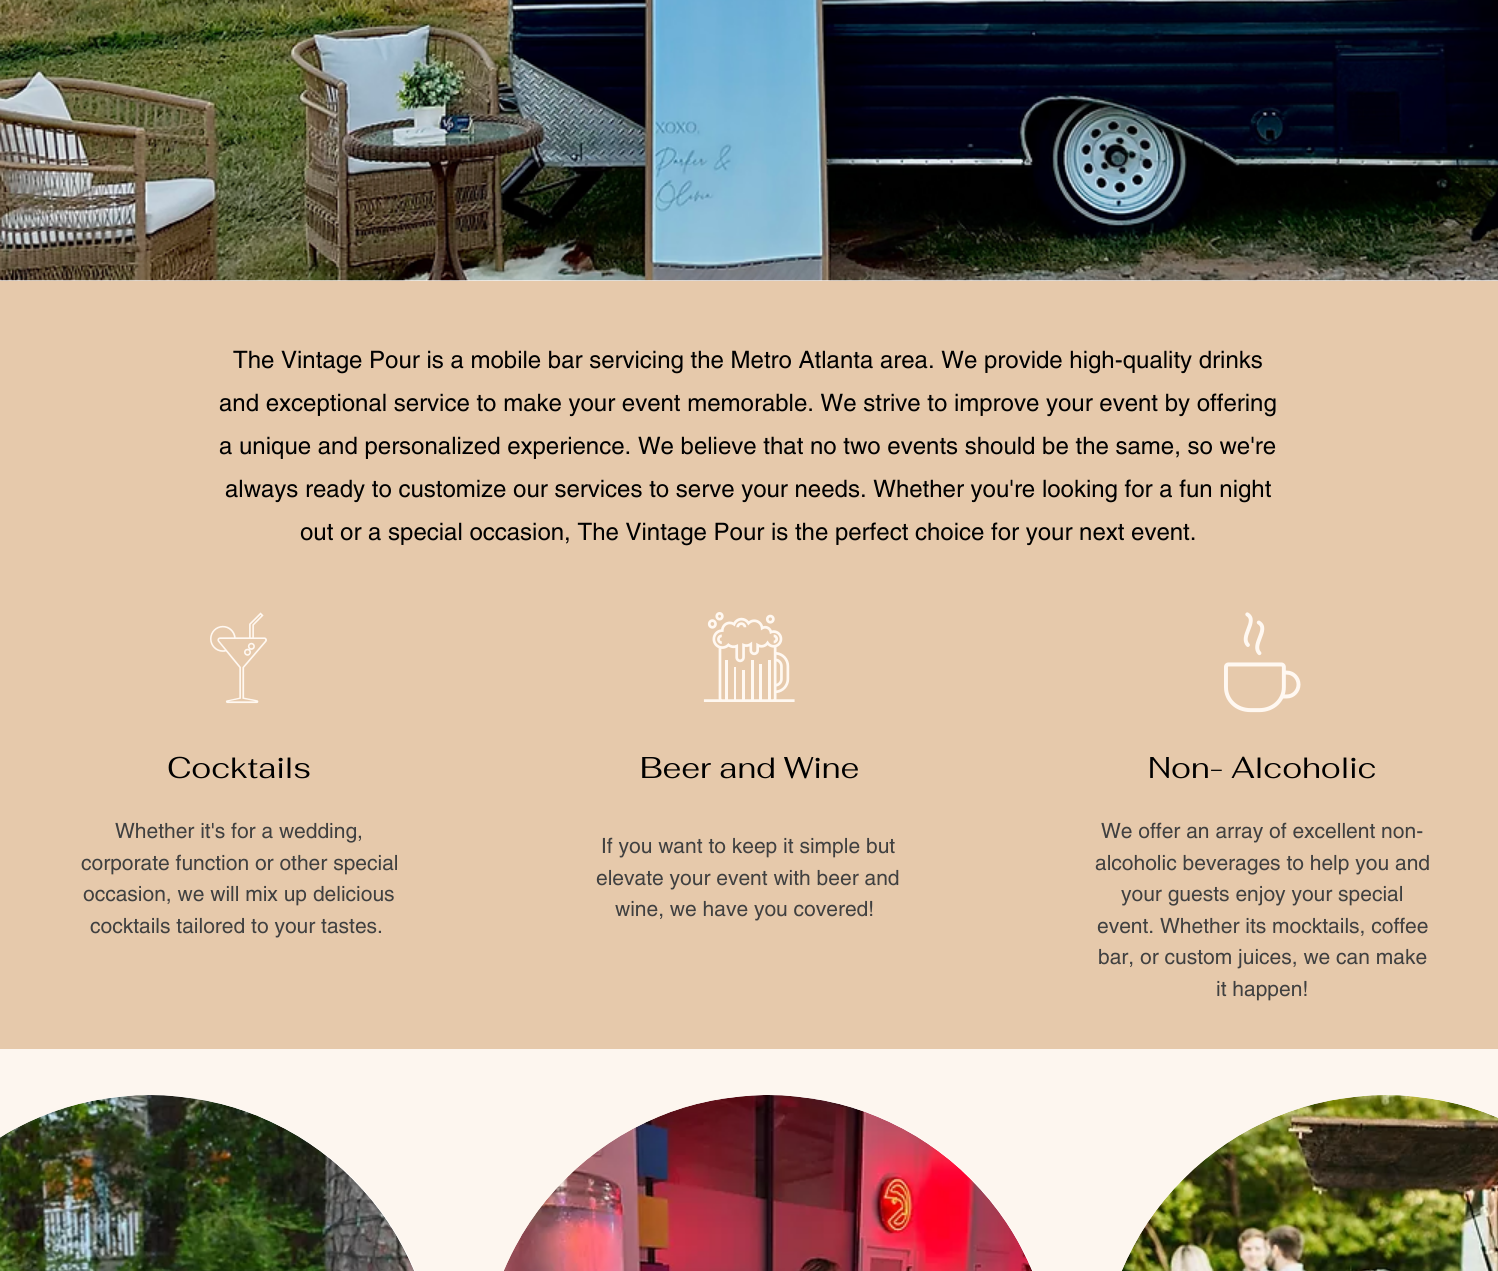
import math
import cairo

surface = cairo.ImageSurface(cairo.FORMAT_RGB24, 1498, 1271)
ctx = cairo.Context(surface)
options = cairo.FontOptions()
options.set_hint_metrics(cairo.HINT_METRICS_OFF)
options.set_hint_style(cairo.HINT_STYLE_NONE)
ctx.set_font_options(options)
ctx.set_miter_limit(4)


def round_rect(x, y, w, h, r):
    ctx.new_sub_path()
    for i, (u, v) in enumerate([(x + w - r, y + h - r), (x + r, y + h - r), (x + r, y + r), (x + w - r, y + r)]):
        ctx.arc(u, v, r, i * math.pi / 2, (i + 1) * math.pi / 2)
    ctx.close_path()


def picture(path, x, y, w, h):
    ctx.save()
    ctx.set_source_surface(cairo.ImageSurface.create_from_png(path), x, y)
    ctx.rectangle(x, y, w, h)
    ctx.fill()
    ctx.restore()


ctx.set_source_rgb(0.992, 0.961, 0.937)
ctx.paint()
picture("img1.png", 0, 0, 1498, 281)
ctx.set_source_rgb(0.902, 0.788, 0.671)
ctx.rectangle(0, 281, 1498, 768)
ctx.fill()
ctx.select_font_face("helvetica")
ctx.set_font_size(24)
ctx.set_source_rgb(0, 0, 0)
ctx.move_to(233, 368)
ctx.show_text("The Vintage Pour is a mobile bar servicing the Metro Atlanta area. We provide high-quality drinks")
ctx.move_to(219, 411)
ctx.show_text("and exceptional service to make your event memorable. We strive to improve your event by offering")
ctx.move_to(219, 454)
ctx.show_text("a unique and personalized experience. We believe that no two events should be the same, so we're")
ctx.move_to(225, 497)
ctx.show_text("always ready to customize our services to serve your needs. Whether you're looking for a fun night")
ctx.move_to(300, 540)
ctx.show_text("out or a special occasion, The Vintage Pour is the perfect choice for your next event.")
picture("img2.png", 210, 612, 57, 92)
picture("img3.png", 703, 612, 92, 90)
picture("img4.png", 1224, 612, 77, 101)
ctx.select_font_face("Fahkwang")
ctx.set_font_size(30)
ctx.move_to(167, 778)
ctx.show_text("Cocktails")
ctx.move_to(640, 778)
ctx.show_text("Beer and Wine")
ctx.move_to(1148, 778)
ctx.show_text("Non- Alcoholic")
ctx.select_font_face("helvetica")
ctx.set_font_size(21)
ctx.set_source_rgb(0.251, 0.251, 0.251)
ctx.move_to(115, 838)
ctx.show_text("Whether it's for a wedding,")
ctx.move_to(81, 870)
ctx.show_text("corporate function or other special")
ctx.move_to(83, 901)
ctx.show_text("occasion, we will mix up delicious")
ctx.move_to(90, 933)
ctx.show_text("cocktails tailored to your tastes.")
ctx.move_to(601, 853)
ctx.show_text("If you want to keep it simple but")
ctx.move_to(596, 885)
ctx.show_text("elevate your event with beer and")
ctx.move_to(615, 916)
ctx.show_text("wine, we have you covered!")
ctx.move_to(1101, 838)
ctx.show_text("We offer an array of excellent non-")
ctx.move_to(1095, 870)
ctx.show_text("alcoholic beverages to help you and")
ctx.move_to(1121, 901)
ctx.show_text("your guests enjoy your special")
ctx.move_to(1097, 933)
ctx.show_text("event. Whether its mocktails, coffee")
ctx.move_to(1098, 964)
ctx.show_text("bar, or custom juices, we can make")
ctx.move_to(1216, 996)
ctx.show_text("it happen!")
ctx.set_source_rgb(1, 1, 1)
round_rect(-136, 1095, 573, 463, 286.5)
ctx.fill()
picture("img5.png", 0, 1095, 414, 176)
round_rect(482, 1095, 573, 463, 286.5)
ctx.fill()
picture("img6.png", 504, 1095, 528, 176)
round_rect(1100, 1095, 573, 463, 286.5)
ctx.fill()
picture("img7.png", 1121, 1095, 377, 176)
surface.write_to_png("page.png")
